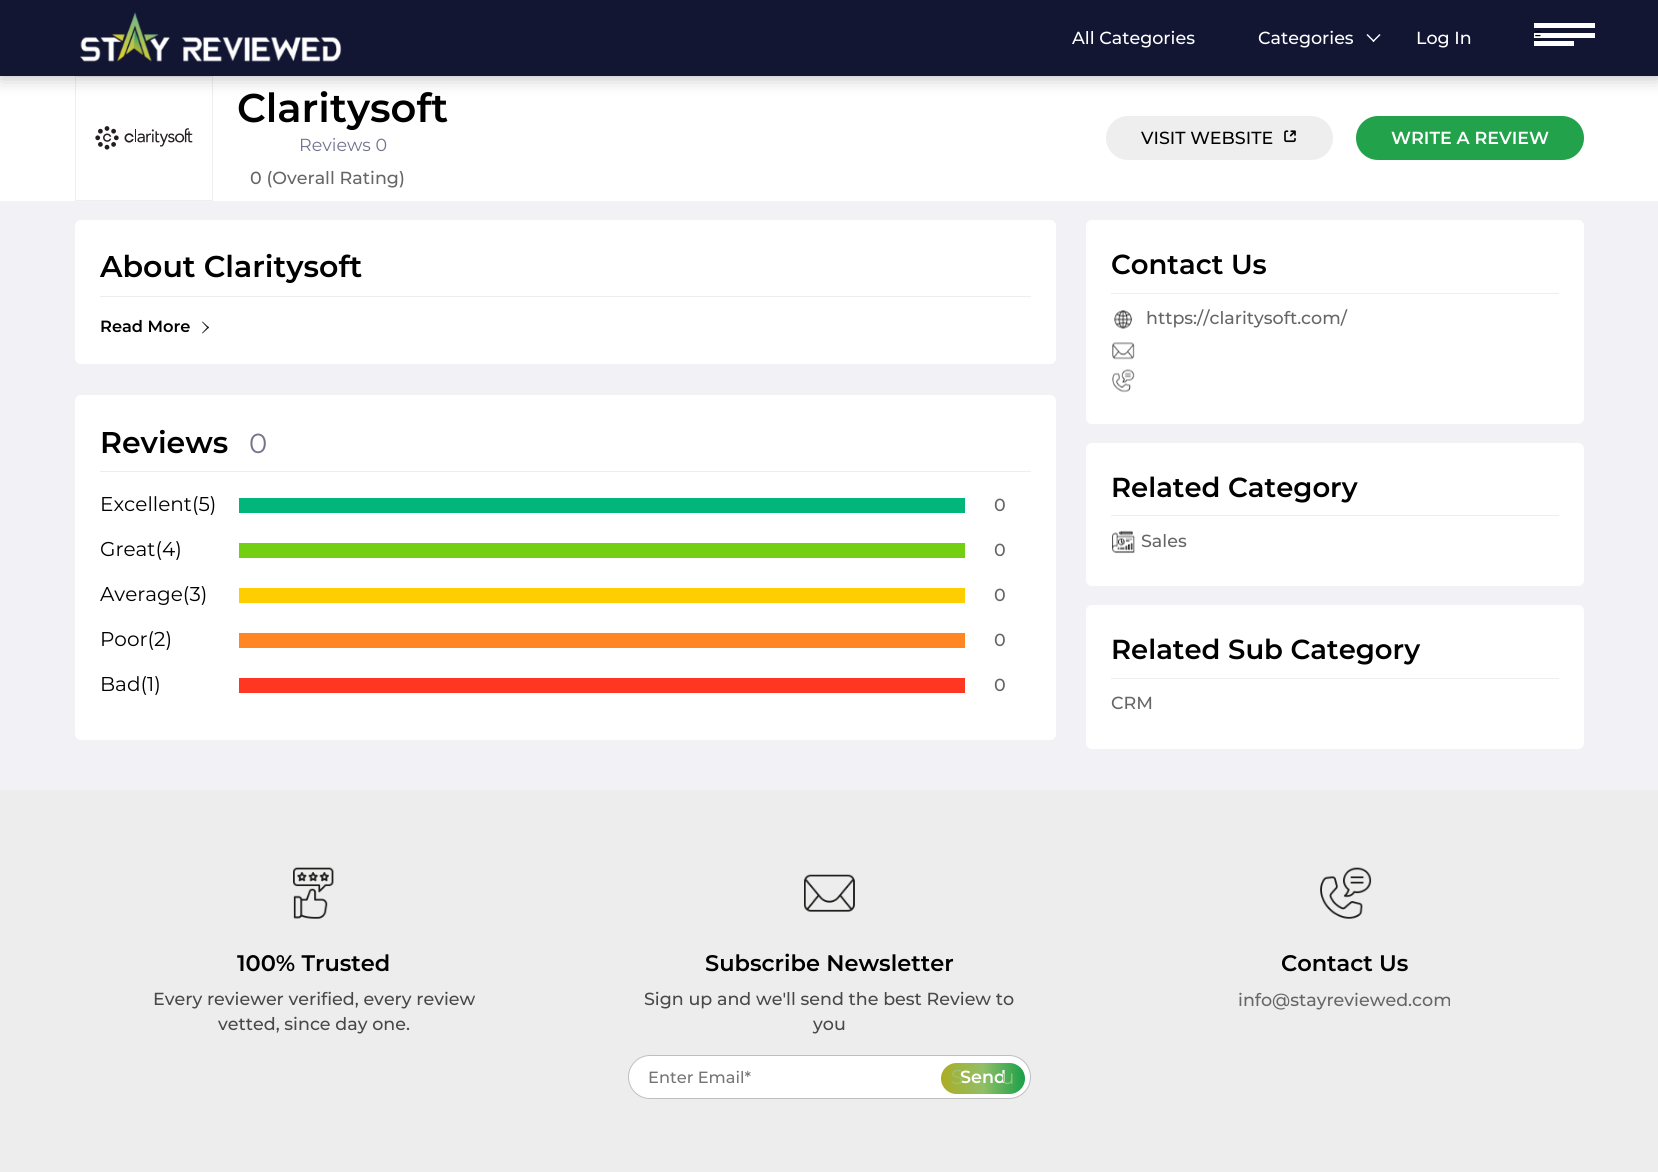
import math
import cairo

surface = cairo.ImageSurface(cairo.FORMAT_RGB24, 1658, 1172)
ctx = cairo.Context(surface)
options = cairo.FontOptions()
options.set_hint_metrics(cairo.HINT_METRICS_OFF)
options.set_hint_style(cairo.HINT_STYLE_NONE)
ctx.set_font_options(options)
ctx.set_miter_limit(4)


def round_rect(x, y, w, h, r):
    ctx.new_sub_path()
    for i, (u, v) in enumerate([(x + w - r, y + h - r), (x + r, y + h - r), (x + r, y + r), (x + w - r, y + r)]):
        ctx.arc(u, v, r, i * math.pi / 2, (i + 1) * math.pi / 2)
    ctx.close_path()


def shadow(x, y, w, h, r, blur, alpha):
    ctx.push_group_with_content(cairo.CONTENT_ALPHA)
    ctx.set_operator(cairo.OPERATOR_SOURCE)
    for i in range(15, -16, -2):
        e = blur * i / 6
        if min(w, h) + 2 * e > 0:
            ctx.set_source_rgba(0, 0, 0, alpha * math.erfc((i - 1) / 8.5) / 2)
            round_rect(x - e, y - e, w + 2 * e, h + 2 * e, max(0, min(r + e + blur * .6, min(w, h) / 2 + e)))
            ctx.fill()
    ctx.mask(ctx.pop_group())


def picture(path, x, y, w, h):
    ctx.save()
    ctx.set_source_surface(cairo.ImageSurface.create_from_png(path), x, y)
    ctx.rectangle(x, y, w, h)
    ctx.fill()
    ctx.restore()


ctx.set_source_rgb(1, 1, 1)
ctx.paint()
ctx.rectangle(75.5, 76.5, 137, 124)
ctx.set_source_rgb(0.933, 0.933, 0.933)
ctx.set_line_width(1)
ctx.stroke()
ctx.set_source_rgb(0, 0, 0)
shadow(0, 0, 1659, 76, 0, 9.5, 0.3)
ctx.set_source_rgb(0.071, 0.086, 0.2)
ctx.rectangle(0, 0, 1658, 76)
ctx.fill()
picture("img1.png", 80, 12, 262, 50)
ctx.select_font_face("Montserrat Medium")
ctx.set_font_size(17.5)
ctx.set_source_rgb(1, 1, 1)
ctx.move_to(1072, 44)
ctx.show_text("All Categories")
ctx.move_to(1258, 44)
ctx.show_text("Categories")
ctx.new_path()
ctx.move_to(1379.5, 34)
ctx.line_to(1380.5, 35)
ctx.line_to(1373.5, 42)
ctx.line_to(1372.5, 41)
ctx.close_path()
ctx.fill()
ctx.new_path()
ctx.move_to(1367.5, 34)
ctx.line_to(1374.5, 41)
ctx.line_to(1373.5, 42)
ctx.line_to(1366.5, 35)
ctx.close_path()
ctx.fill()
ctx.move_to(1416, 44)
ctx.show_text("Log In")
ctx.rectangle(1534, 23, 61, 5)
ctx.fill()
ctx.select_font_face("Montserrat")
ctx.set_font_size(20)
ctx.set_source_rgb(0, 0, 0)
ctx.move_to(1534, 37)
ctx.show_text("-")
ctx.set_source_rgb(1, 1, 1)
ctx.rectangle(1534, 33, 61, 5)
ctx.fill()
ctx.set_source_rgb(0, 0, 0)
ctx.move_to(1534, 41)
ctx.show_text("-")
ctx.move_to(1534, 46)
ctx.show_text("-")
ctx.set_source_rgb(1, 1, 1)
ctx.rectangle(1534, 41, 40, 5)
ctx.fill()
picture("img2.png", 95, 126, 98, 24)
ctx.select_font_face("Montserrat SemiBold")
ctx.set_font_size(40)
ctx.set_source_rgb(0, 0, 0)
ctx.move_to(237, 122)
ctx.show_text("Claritysoft")
ctx.select_font_face("Montserrat")
ctx.set_font_size(17.5)
ctx.set_source_rgb(0.451, 0.451, 0.561)
ctx.move_to(299, 151)
ctx.show_text("Reviews 0")
ctx.select_font_face("Montserrat Medium")
ctx.set_source_rgb(0.4, 0.4, 0.4)
ctx.move_to(250, 184)
ctx.show_text("0 (Overall Rating)")
ctx.set_source_rgb(0.933, 0.933, 0.933)
round_rect(1106, 116, 227, 44, 22)
ctx.fill()
ctx.set_source_rgb(0, 0, 0)
ctx.move_to(1141, 144)
ctx.show_text("VISIT WEBSITE")
picture("img3.png", 1284, 130, 12, 13)
ctx.set_source_rgb(0.129, 0.635, 0.294)
round_rect(1356, 116, 228, 44, 22)
ctx.fill()
ctx.select_font_face("Montserrat SemiBold")
ctx.set_source_rgb(1, 1, 1)
ctx.move_to(1391, 144)
ctx.show_text("WRITE A REVIEW")
ctx.set_source_rgb(0.949, 0.949, 0.961)
ctx.rectangle(0, 201, 1658, 589)
ctx.fill()
ctx.set_source_rgb(1, 1, 1)
round_rect(75, 220, 981, 144, 6)
ctx.fill()
ctx.set_source_rgb(0.933, 0.933, 0.933)
ctx.rectangle(100, 296, 931, 1)
ctx.fill()
ctx.set_font_size(30)
ctx.set_source_rgb(0, 0, 0)
ctx.move_to(100, 277)
ctx.show_text("About Claritysoft")
ctx.set_font_size(16.25)
ctx.move_to(100, 332)
ctx.show_text("Read More")
ctx.set_source_rgb(0.106, 0.106, 0.106)
ctx.new_path()
ctx.move_to(202, 322)
ctx.line_to(202.5, 321.5)
ctx.line_to(209, 327.5)
ctx.line_to(208, 328.5)
ctx.close_path()
ctx.fill()
ctx.new_path()
ctx.move_to(202, 333)
ctx.line_to(208, 326.5)
ctx.line_to(209, 327.5)
ctx.line_to(202.5, 333.5)
ctx.close_path()
ctx.fill()
ctx.set_source_rgb(1, 1, 1)
round_rect(75, 395, 981, 345, 6)
ctx.fill()
ctx.set_source_rgb(0.933, 0.933, 0.933)
ctx.rectangle(100, 471, 931, 1)
ctx.fill()
ctx.set_font_size(30)
ctx.set_source_rgb(0, 0, 0)
ctx.move_to(100, 453)
ctx.show_text("Reviews")
ctx.select_font_face("Montserrat")
ctx.set_font_size(27.5)
ctx.set_source_rgb(0.451, 0.451, 0.561)
ctx.move_to(249, 453)
ctx.show_text("0")
ctx.set_font_size(20)
ctx.set_source_rgb(0, 0, 0)
ctx.move_to(100, 511)
ctx.show_text("Excellent(5)")
ctx.set_source_rgb(0, 0.714, 0.478)
ctx.rectangle(239, 498, 726, 15)
ctx.fill()
ctx.select_font_face("Montserrat Medium")
ctx.set_font_size(17.5)
ctx.set_source_rgb(0.4, 0.4, 0.4)
ctx.move_to(994, 511)
ctx.show_text("0")
ctx.select_font_face("Montserrat")
ctx.set_font_size(20)
ctx.set_source_rgb(0, 0, 0)
ctx.move_to(100, 556)
ctx.show_text("Great(4)")
ctx.set_source_rgb(0.451, 0.812, 0.067)
ctx.rectangle(239, 543, 726, 15)
ctx.fill()
ctx.select_font_face("Montserrat Medium")
ctx.set_font_size(17.5)
ctx.set_source_rgb(0.4, 0.4, 0.4)
ctx.move_to(994, 556)
ctx.show_text("0")
ctx.select_font_face("Montserrat")
ctx.set_font_size(20)
ctx.set_source_rgb(0, 0, 0)
ctx.move_to(100, 601)
ctx.show_text("Average(3)")
ctx.set_source_rgb(1, 0.808, 0)
ctx.rectangle(239, 588, 726, 15)
ctx.fill()
ctx.select_font_face("Montserrat Medium")
ctx.set_font_size(17.5)
ctx.set_source_rgb(0.4, 0.4, 0.4)
ctx.move_to(994, 601)
ctx.show_text("0")
ctx.select_font_face("Montserrat")
ctx.set_font_size(20)
ctx.set_source_rgb(0, 0, 0)
ctx.move_to(100, 646)
ctx.show_text("Poor(2)")
ctx.set_source_rgb(1, 0.525, 0.133)
ctx.rectangle(239, 633, 726, 15)
ctx.fill()
ctx.select_font_face("Montserrat Medium")
ctx.set_font_size(17.5)
ctx.set_source_rgb(0.4, 0.4, 0.4)
ctx.move_to(994, 646)
ctx.show_text("0")
ctx.select_font_face("Montserrat")
ctx.set_font_size(20)
ctx.set_source_rgb(0, 0, 0)
ctx.move_to(100, 691)
ctx.show_text("Bad(1)")
ctx.set_source_rgb(1, 0.216, 0.133)
ctx.rectangle(239, 678, 726, 15)
ctx.fill()
ctx.select_font_face("Montserrat Medium")
ctx.set_font_size(17.5)
ctx.set_source_rgb(0.4, 0.4, 0.4)
ctx.move_to(994, 691)
ctx.show_text("0")
ctx.set_source_rgb(1, 1, 1)
round_rect(1086, 220, 498, 204, 6)
ctx.fill()
ctx.set_source_rgb(0.933, 0.933, 0.933)
ctx.rectangle(1111, 293, 448, 1)
ctx.fill()
ctx.select_font_face("Montserrat SemiBold")
ctx.set_font_size(27.5)
ctx.set_source_rgb(0, 0, 0)
ctx.move_to(1111, 274)
ctx.show_text("Contact Us")
picture("img4.png", 1114, 310, 19, 19)
ctx.select_font_face("Montserrat Medium")
ctx.set_font_size(17.5)
ctx.set_source_rgb(0.4, 0.4, 0.4)
ctx.move_to(1146, 324)
ctx.show_text("https://claritysoft.com/")
picture("img5.png", 1112, 342, 23, 18)
picture("img6.png", 1112, 369, 23, 24)
ctx.set_source_rgb(1, 1, 1)
round_rect(1086, 443, 498, 143, 6)
ctx.fill()
ctx.set_source_rgb(0.933, 0.933, 0.933)
ctx.rectangle(1111, 515, 448, 1)
ctx.fill()
ctx.select_font_face("Montserrat SemiBold")
ctx.set_font_size(27.5)
ctx.set_source_rgb(0, 0, 0)
ctx.move_to(1111, 497)
ctx.show_text("Related Category")
picture("img7.png", 1112, 530, 23, 24)
ctx.select_font_face("Montserrat Medium")
ctx.set_font_size(17.5)
ctx.set_source_rgb(0.4, 0.4, 0.4)
ctx.move_to(1141, 547)
ctx.show_text("Sales")
ctx.set_source_rgb(1, 1, 1)
round_rect(1086, 605, 498, 144, 6)
ctx.fill()
ctx.set_source_rgb(0.933, 0.933, 0.933)
ctx.rectangle(1111, 678, 448, 1)
ctx.fill()
ctx.select_font_face("Montserrat SemiBold")
ctx.set_font_size(27.5)
ctx.set_source_rgb(0, 0, 0)
ctx.move_to(1111, 659)
ctx.show_text("Related Sub Category")
ctx.select_font_face("Montserrat Medium")
ctx.set_font_size(17.5)
ctx.set_source_rgb(0.4, 0.4, 0.4)
ctx.move_to(1111, 709)
ctx.show_text("CRM")
ctx.set_source_rgb(0.929, 0.929, 0.929)
ctx.rectangle(0, 790, 1658, 382)
ctx.fill()
picture("img8.png", 293, 867, 41, 52)
ctx.select_font_face("Montserrat SemiBold")
ctx.set_font_size(22.5)
ctx.set_source_rgb(0, 0, 0)
ctx.move_to(237, 971)
ctx.show_text("100% Trusted")
ctx.select_font_face("Montserrat Medium")
ctx.set_font_size(17.5)
ctx.set_source_rgb(0.282, 0.282, 0.282)
ctx.move_to(153, 1005)
ctx.show_text("Every reviewer verified, every review")
ctx.move_to(218, 1030)
ctx.show_text("vetted, since day one.")
picture("img9.png", 804, 874, 51, 38)
ctx.select_font_face("Montserrat SemiBold")
ctx.set_font_size(22.5)
ctx.set_source_rgb(0, 0, 0)
ctx.move_to(705, 971)
ctx.show_text("Subscribe Newsletter")
ctx.select_font_face("Montserrat Medium")
ctx.set_font_size(17.5)
ctx.set_source_rgb(0.282, 0.282, 0.282)
ctx.move_to(644, 1005)
ctx.show_text("Sign up and we'll send the best Review to")
ctx.move_to(813, 1030)
ctx.show_text("you")
ctx.set_source_rgb(1, 1, 1)
round_rect(628.5, 1055.5, 402, 43, 21.5)
ctx.fill_preserve()
ctx.set_source_rgb(0.749, 0.749, 0.749)
ctx.stroke()
ctx.set_font_size(16.25)
ctx.set_source_rgb(0.459, 0.459, 0.459)
ctx.move_to(648, 1083)
ctx.show_text("Enter Email*")
gradient = cairo.LinearGradient(941, 1078, 1025, 1078)
gradient.add_color_stop_rgba(0, 0.675, 0.675, 0.141, 1)
gradient.add_color_stop_rgba(0.5, 0.569, 0.749, 0.404, 1)
gradient.add_color_stop_rgba(1, 0.098, 0.627, 0.286, 1)
ctx.set_source(gradient)
round_rect(941, 1063, 84, 31, 15.5)
ctx.fill()
ctx.select_font_face("Montserrat SemiBold")
ctx.set_font_size(17.5)
ctx.set_source_rgb(1, 1, 1)
ctx.move_to(960, 1083)
ctx.show_text("Send")
ctx.select_font_face("Montserrat")
ctx.set_font_size(20)
ctx.set_source_rgb(0.58, 0.765, 0.467)
ctx.move_to(951, 1084)
ctx.show_text("S")
ctx.move_to(1001, 1084)
ctx.show_text("u")
picture("img10.png", 1320, 867, 52, 52)
ctx.select_font_face("Montserrat SemiBold")
ctx.set_font_size(22.5)
ctx.set_source_rgb(0, 0, 0)
ctx.move_to(1281, 971)
ctx.show_text("Contact Us")
ctx.select_font_face("Montserrat Medium")
ctx.set_font_size(17.5)
ctx.set_source_rgb(0.4, 0.4, 0.4)
ctx.move_to(1238, 1006)
ctx.show_text("info@stayreviewed.com")
surface.write_to_png("page.png")
